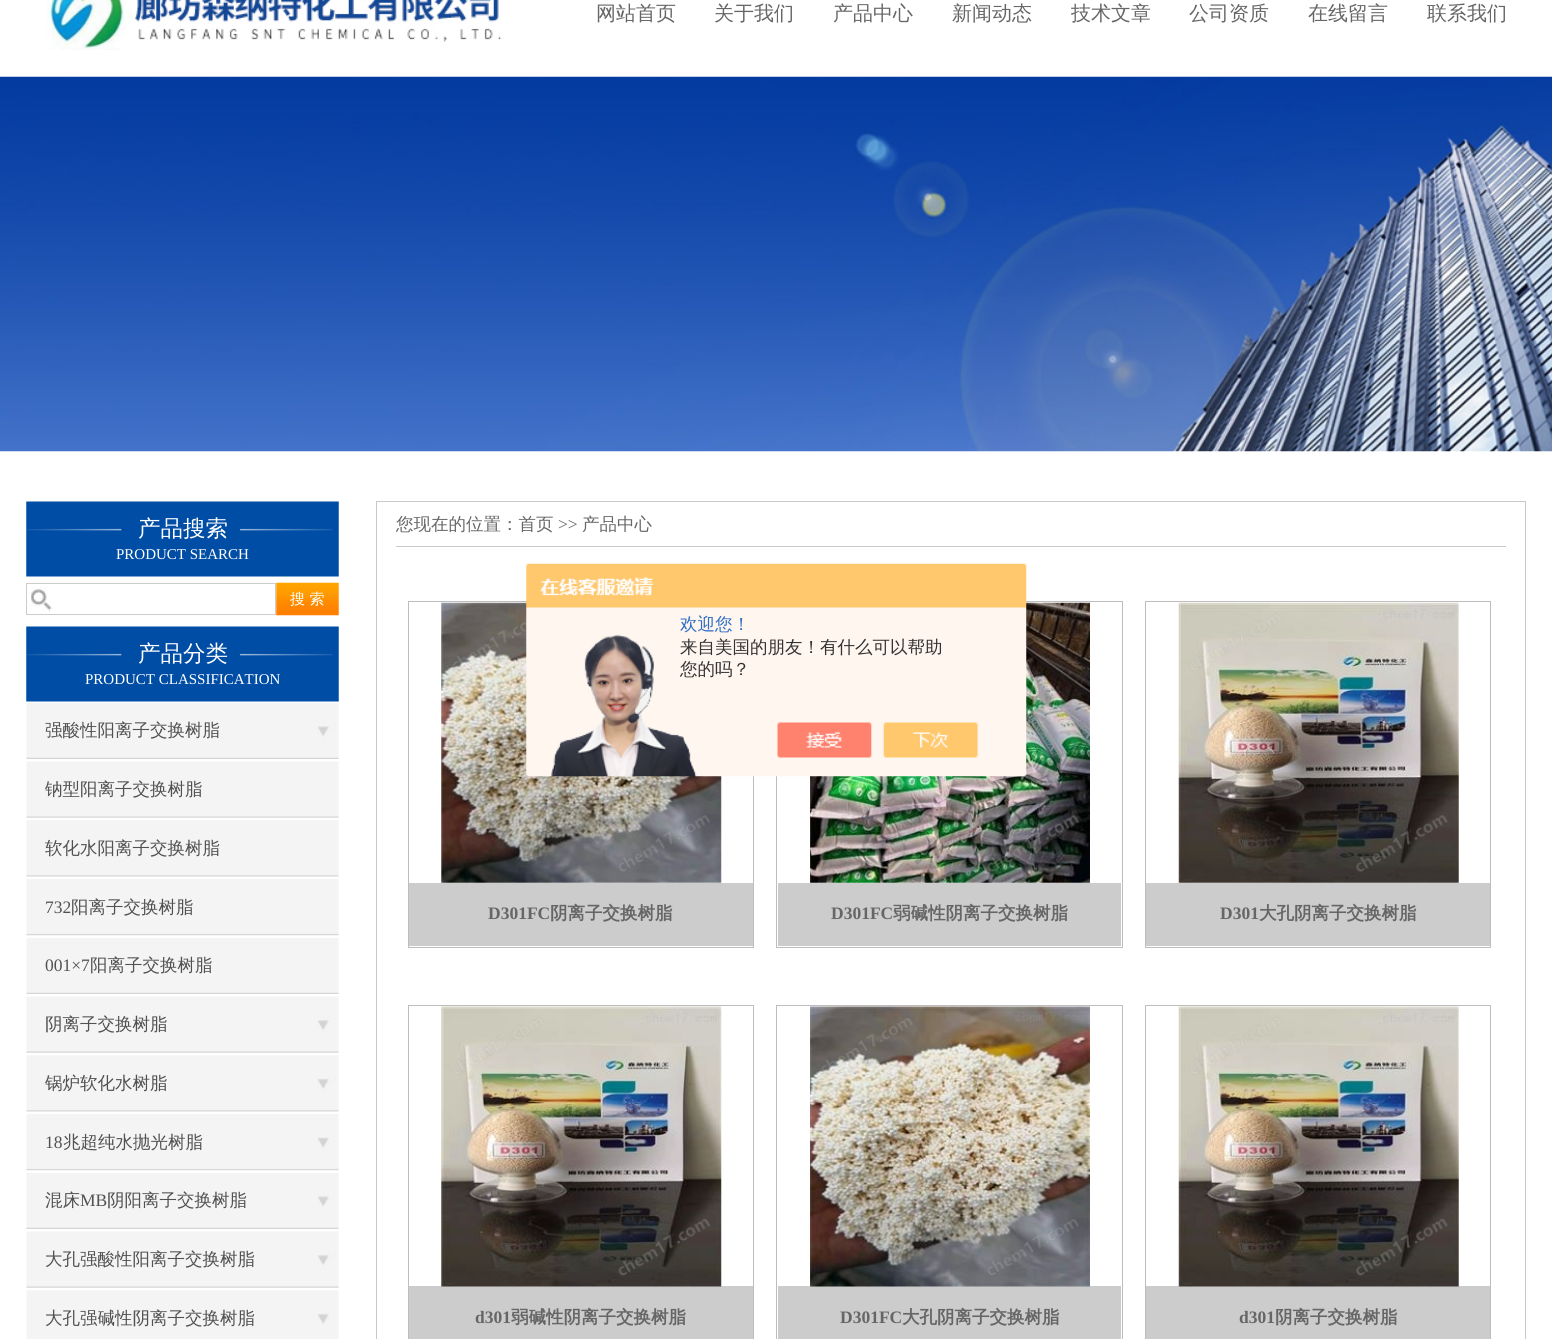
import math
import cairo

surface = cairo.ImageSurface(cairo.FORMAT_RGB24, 1552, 1339)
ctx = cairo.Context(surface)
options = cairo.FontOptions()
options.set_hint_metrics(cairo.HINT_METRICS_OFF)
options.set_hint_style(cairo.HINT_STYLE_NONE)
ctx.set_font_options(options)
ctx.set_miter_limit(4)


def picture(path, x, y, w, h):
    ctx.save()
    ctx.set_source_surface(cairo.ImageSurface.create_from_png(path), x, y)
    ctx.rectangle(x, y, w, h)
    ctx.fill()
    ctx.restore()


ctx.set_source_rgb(1, 1, 1)
ctx.paint()
picture("img1.png", 47, 0, 455, 50)
ctx.select_font_face("WenQuanYi Zen Hei Medium")
ctx.set_font_size(20)
ctx.set_source_rgb(0.4, 0.4, 0.4)
ctx.move_to(596, 20)
ctx.show_text("网站首页")
ctx.move_to(714, 20)
ctx.show_text("关于我们")
ctx.move_to(833, 20)
ctx.show_text("产品中心")
ctx.move_to(952, 20)
ctx.show_text("新闻动态")
ctx.move_to(1071, 20)
ctx.show_text("技术文章")
ctx.move_to(1189, 20)
ctx.show_text("公司资质")
ctx.move_to(1308, 20)
ctx.show_text("在线留言")
ctx.move_to(1427, 20)
ctx.show_text("联系我们")
picture("img2.png", 0, 76, 1552, 376)
picture("img3.png", 26, 501, 313, 76)
ctx.set_font_size(22.5)
ctx.set_source_rgb(1, 1, 1)
ctx.move_to(138, 536)
ctx.show_text("产品搜索")
ctx.select_font_face("Liberation Serif")
ctx.set_font_size(15)
ctx.move_to(116, 559)
ctx.show_text("PRODUCT SEARCH")
picture("img4.png", 31, 586, 21, 26)
ctx.rectangle(26.5, 583.5, 249, 31)
ctx.set_source_rgb(0.8, 0.8, 0.8)
ctx.set_line_width(1)
ctx.stroke()
picture("img5.png", 276, 582, 63, 34)
ctx.select_font_face("WenQuanYi Zen Hei Medium")
ctx.set_source_rgb(1, 1, 1)
ctx.move_to(290, 604)
ctx.show_text("搜 索")
picture("img3.png", 26, 626, 313, 76)
ctx.set_font_size(22.5)
ctx.move_to(138, 661)
ctx.show_text("产品分类")
ctx.select_font_face("Liberation Serif")
ctx.set_font_size(15)
ctx.move_to(85, 684)
ctx.show_text("PRODUCT CLASSIFICATION")
picture("img6.png", 26, 703, 313, 56)
ctx.select_font_face("WenQuanYi Zen Hei Medium")
ctx.set_font_size(17.5)
ctx.set_source_rgb(0.318, 0.318, 0.318)
ctx.move_to(45, 736)
ctx.show_text("强酸性阳离子交换树脂")
picture("img7.png", 26, 761, 313, 57)
ctx.move_to(45, 795)
ctx.show_text("钠型阳离子交换树脂")
picture("img8.png", 26, 820, 313, 57)
ctx.move_to(45, 854)
ctx.show_text("软化水阳离子交换树脂")
picture("img9.png", 26, 879, 313, 57)
ctx.select_font_face("Liberation Serif")
ctx.move_to(45, 913)
ctx.show_text("732")
ctx.select_font_face("WenQuanYi Zen Hei Medium")
ctx.move_to(71, 913)
ctx.show_text("阳离子交换树脂")
picture("img10.png", 26, 938, 313, 56)
ctx.select_font_face("Liberation Serif")
ctx.move_to(45, 971)
ctx.show_text("001×7")
ctx.select_font_face("WenQuanYi Zen Hei Medium")
ctx.move_to(90, 971)
ctx.show_text("阳离子交换树脂")
picture("img11.png", 26, 996, 313, 57)
ctx.move_to(45, 1030)
ctx.show_text("阴离子交换树脂")
picture("img12.png", 26, 1055, 313, 57)
ctx.move_to(45, 1089)
ctx.show_text("锅炉软化水树脂")
picture("img13.png", 26, 1114, 313, 57)
ctx.select_font_face("Liberation Serif")
ctx.move_to(45, 1148)
ctx.show_text("18")
ctx.select_font_face("WenQuanYi Zen Hei Medium")
ctx.move_to(63, 1148)
ctx.show_text("兆超纯水抛光树脂")
picture("img6.png", 26, 1173, 313, 56)
ctx.move_to(45, 1206)
ctx.show_text("混床")
ctx.select_font_face("Liberation Serif")
ctx.move_to(80, 1206)
ctx.show_text("MB")
ctx.select_font_face("WenQuanYi Zen Hei Medium")
ctx.move_to(107, 1206)
ctx.show_text("阴阳离子交换树脂")
picture("img11.png", 26, 1231, 313, 57)
ctx.move_to(45, 1265)
ctx.show_text("大孔强酸性阳离子交换树脂")
picture("img14.png", 26, 1290, 313, 49)
ctx.move_to(45, 1324)
ctx.show_text("大孔强碱性阴离子交换树脂")
ctx.rectangle(376.5, 501.5, 1149, 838)
ctx.set_source_rgb(0.788, 0.788, 0.788)
ctx.stroke()
ctx.rectangle(396, 546, 1110, 1)
ctx.fill()
ctx.set_source_rgb(0.4, 0.4, 0.4)
ctx.move_to(396, 530)
ctx.show_text("您现在的位置：首页")
ctx.select_font_face("Liberation Serif")
ctx.move_to(558, 530)
ctx.show_text(">>")
ctx.select_font_face("WenQuanYi Zen Hei Medium")
ctx.move_to(582, 530)
ctx.show_text("产品中心")
ctx.rectangle(408.5, 601.5, 345, 346)
ctx.set_source_rgb(0.741, 0.741, 0.741)
ctx.stroke()
picture("img15.png", 441, 602, 281, 281)
ctx.set_source_rgb(0.8, 0.8, 0.8)
ctx.rectangle(409, 883, 344, 63)
ctx.fill()
ctx.select_font_face("Liberation Serif", cairo.FONT_SLANT_NORMAL, cairo.FONT_WEIGHT_BOLD)
ctx.set_source_rgb(0.4, 0.4, 0.4)
ctx.move_to(488, 919)
ctx.show_text("D301FC")
ctx.select_font_face("WenQuanYi Zen Hei", cairo.FONT_SLANT_NORMAL, cairo.FONT_WEIGHT_BOLD)
ctx.move_to(550, 919)
ctx.show_text("阴离子交换树脂")
ctx.rectangle(776.5, 601.5, 346, 346)
ctx.set_source_rgb(0.741, 0.741, 0.741)
ctx.stroke()
picture("img16.png", 810, 602, 280, 281)
ctx.set_source_rgb(0.8, 0.8, 0.8)
ctx.rectangle(778, 883, 343, 63)
ctx.fill()
ctx.select_font_face("Liberation Serif", cairo.FONT_SLANT_NORMAL, cairo.FONT_WEIGHT_BOLD)
ctx.set_source_rgb(0.4, 0.4, 0.4)
ctx.move_to(831, 919)
ctx.show_text("D301FC")
ctx.select_font_face("WenQuanYi Zen Hei", cairo.FONT_SLANT_NORMAL, cairo.FONT_WEIGHT_BOLD)
ctx.move_to(893, 919)
ctx.show_text("弱碱性阴离子交换树脂")
ctx.rectangle(1145.5, 601.5, 345, 346)
ctx.set_source_rgb(0.741, 0.741, 0.741)
ctx.stroke()
picture("img17.png", 1178, 602, 281, 281)
ctx.set_source_rgb(0.8, 0.8, 0.8)
ctx.rectangle(1146, 883, 344, 63)
ctx.fill()
ctx.select_font_face("Liberation Serif", cairo.FONT_SLANT_NORMAL, cairo.FONT_WEIGHT_BOLD)
ctx.set_source_rgb(0.4, 0.4, 0.4)
ctx.move_to(1220, 919)
ctx.show_text("D301")
ctx.select_font_face("WenQuanYi Zen Hei", cairo.FONT_SLANT_NORMAL, cairo.FONT_WEIGHT_BOLD)
ctx.move_to(1259, 919)
ctx.show_text("大孔阴离子交换树脂")
ctx.rectangle(408.5, 1005.5, 345, 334)
ctx.set_source_rgb(0.741, 0.741, 0.741)
ctx.stroke()
ctx.set_source_rgb(0.8, 0.8, 0.8)
ctx.rectangle(409, 1286, 344, 53)
ctx.fill()
picture("img18.png", 441, 1006, 281, 281)
ctx.select_font_face("Liberation Serif", cairo.FONT_SLANT_NORMAL, cairo.FONT_WEIGHT_BOLD)
ctx.set_source_rgb(0.4, 0.4, 0.4)
ctx.move_to(475, 1323)
ctx.show_text("d301")
ctx.select_font_face("WenQuanYi Zen Hei", cairo.FONT_SLANT_NORMAL, cairo.FONT_WEIGHT_BOLD)
ctx.move_to(511, 1323)
ctx.show_text("弱碱性阴离子交换树脂")
ctx.rectangle(776.5, 1005.5, 346, 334)
ctx.set_source_rgb(0.741, 0.741, 0.741)
ctx.stroke()
ctx.set_source_rgb(0.8, 0.8, 0.8)
ctx.rectangle(778, 1286, 343, 53)
ctx.fill()
picture("img19.png", 810, 1006, 280, 281)
ctx.select_font_face("Liberation Serif", cairo.FONT_SLANT_NORMAL, cairo.FONT_WEIGHT_BOLD)
ctx.set_source_rgb(0.4, 0.4, 0.4)
ctx.move_to(840, 1323)
ctx.show_text("D301FC")
ctx.select_font_face("WenQuanYi Zen Hei", cairo.FONT_SLANT_NORMAL, cairo.FONT_WEIGHT_BOLD)
ctx.move_to(902, 1323)
ctx.show_text("大孔阴离子交换树脂")
ctx.rectangle(1145.5, 1005.5, 345, 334)
ctx.set_source_rgb(0.741, 0.741, 0.741)
ctx.stroke()
ctx.set_source_rgb(0.8, 0.8, 0.8)
ctx.rectangle(1146, 1286, 344, 53)
ctx.fill()
picture("img20.png", 1178, 1006, 281, 281)
ctx.select_font_face("Liberation Serif", cairo.FONT_SLANT_NORMAL, cairo.FONT_WEIGHT_BOLD)
ctx.set_source_rgb(0.4, 0.4, 0.4)
ctx.move_to(1239, 1323)
ctx.show_text("d301")
ctx.select_font_face("WenQuanYi Zen Hei", cairo.FONT_SLANT_NORMAL, cairo.FONT_WEIGHT_BOLD)
ctx.move_to(1275, 1323)
ctx.show_text("阴离子交换树脂")
picture("img21.png", 526, 563, 501, 214)
ctx.select_font_face("WenQuanYi Zen Hei Medium")
ctx.set_source_rgb(0.18, 0.431, 0.776)
ctx.move_to(680, 630)
ctx.show_text("欢迎您！")
ctx.set_source_rgb(0.2, 0.2, 0.2)
ctx.move_to(680, 653)
ctx.show_text("来自美国的朋友！有什么可以帮助")
ctx.move_to(680, 675)
ctx.show_text("您的吗？")
surface.write_to_png("page.png")
